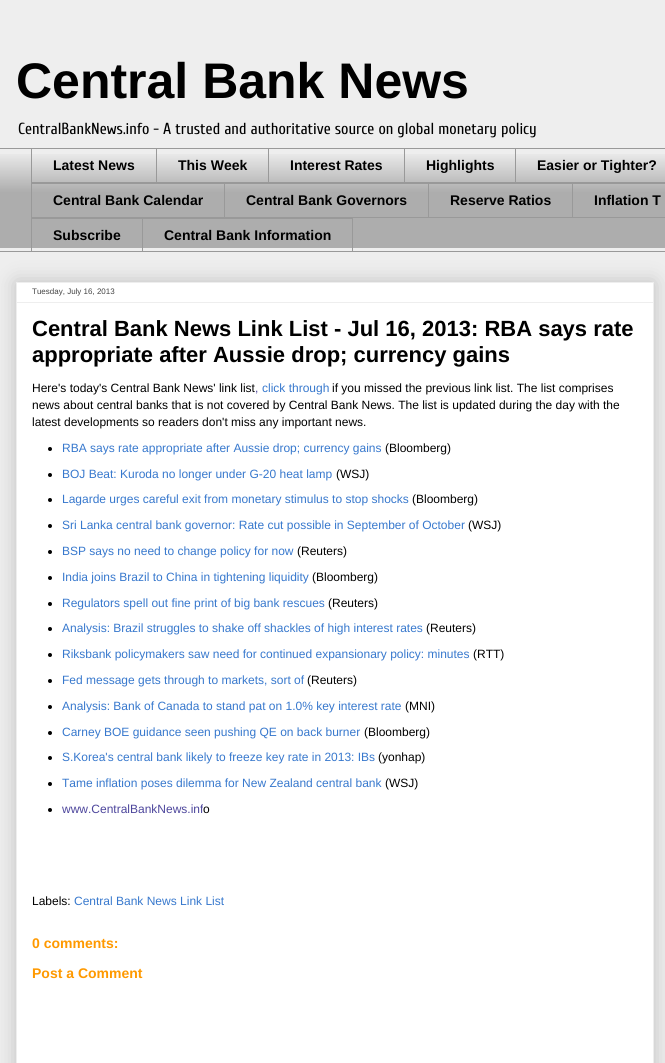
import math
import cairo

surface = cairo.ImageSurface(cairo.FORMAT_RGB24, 665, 1063)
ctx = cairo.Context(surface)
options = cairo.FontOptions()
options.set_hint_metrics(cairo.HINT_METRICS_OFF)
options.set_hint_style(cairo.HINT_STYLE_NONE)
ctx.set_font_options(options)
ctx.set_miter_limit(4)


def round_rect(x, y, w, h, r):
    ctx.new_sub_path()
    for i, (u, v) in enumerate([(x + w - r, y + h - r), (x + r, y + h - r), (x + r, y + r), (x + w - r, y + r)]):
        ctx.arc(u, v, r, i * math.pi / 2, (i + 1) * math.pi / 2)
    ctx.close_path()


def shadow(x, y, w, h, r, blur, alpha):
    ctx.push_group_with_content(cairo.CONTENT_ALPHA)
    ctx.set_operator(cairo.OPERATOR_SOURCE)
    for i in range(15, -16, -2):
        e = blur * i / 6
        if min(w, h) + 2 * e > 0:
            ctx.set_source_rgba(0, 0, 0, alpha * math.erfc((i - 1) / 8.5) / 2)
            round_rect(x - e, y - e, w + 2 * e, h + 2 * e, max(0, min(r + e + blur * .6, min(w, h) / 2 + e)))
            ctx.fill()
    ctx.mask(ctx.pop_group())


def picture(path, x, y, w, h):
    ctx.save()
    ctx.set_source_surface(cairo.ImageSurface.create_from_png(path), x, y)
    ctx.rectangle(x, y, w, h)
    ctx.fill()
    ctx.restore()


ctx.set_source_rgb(0.933, 0.933, 0.933)
ctx.paint()
ctx.select_font_face("Liberation Sans", cairo.FONT_SLANT_NORMAL, cairo.FONT_WEIGHT_BOLD)
ctx.set_font_size(50)
ctx.set_source_rgb(0, 0, 0)
ctx.move_to(16, 98)
ctx.show_text("Central Bank News")
ctx.select_font_face("Cuprum")
ctx.set_font_size(16)
ctx.move_to(18, 134)
ctx.show_text("CentralBankNews.info - A trusted and authoritative source on global monetary policy")
picture("img1.png", 0, 154, 665, 94)
ctx.set_source_rgb(0.6, 0.6, 0.6)
ctx.rectangle(0, 148, 665, 1)
ctx.fill()
ctx.rectangle(31, 182, 634, 1)
ctx.fill()
ctx.rectangle(31, 148, 1, 35)
ctx.fill()
ctx.select_font_face("Liberation Sans", cairo.FONT_SLANT_NORMAL, cairo.FONT_WEIGHT_BOLD)
ctx.set_font_size(14)
ctx.set_source_rgb(0, 0, 0)
ctx.move_to(53, 170)
ctx.show_text("Latest News")
ctx.set_source_rgb(0.6, 0.6, 0.6)
ctx.rectangle(156, 148, 1, 35)
ctx.fill()
ctx.set_source_rgb(0, 0, 0)
ctx.move_to(178, 170)
ctx.show_text("This Week")
ctx.set_source_rgb(0.6, 0.6, 0.6)
ctx.rectangle(268, 148, 1, 35)
ctx.fill()
ctx.set_source_rgb(0, 0, 0)
ctx.move_to(290, 170)
ctx.show_text("Interest Rates")
ctx.set_source_rgb(0.6, 0.6, 0.6)
ctx.rectangle(404, 148, 1, 35)
ctx.fill()
ctx.set_source_rgb(0, 0, 0)
ctx.move_to(426, 170)
ctx.show_text("Highlights")
ctx.set_source_rgb(0.6, 0.6, 0.6)
ctx.rectangle(515, 148, 1, 35)
ctx.fill()
ctx.set_source_rgb(0, 0, 0)
ctx.move_to(537, 170)
ctx.show_text("Easier or Tighter?")
ctx.set_source_rgb(0.6, 0.6, 0.6)
ctx.rectangle(31, 183, 634, 1)
ctx.fill()
ctx.rectangle(31, 217, 634, 1)
ctx.fill()
ctx.rectangle(31, 183, 1, 35)
ctx.fill()
ctx.set_source_rgb(0, 0, 0)
ctx.move_to(53, 205)
ctx.show_text("Central Bank Calendar")
ctx.set_source_rgb(0.6, 0.6, 0.6)
ctx.rectangle(224, 183, 1, 35)
ctx.fill()
ctx.set_source_rgb(0, 0, 0)
ctx.move_to(246, 205)
ctx.show_text("Central Bank Governors")
ctx.set_source_rgb(0.6, 0.6, 0.6)
ctx.rectangle(428, 183, 1, 35)
ctx.fill()
ctx.set_source_rgb(0, 0, 0)
ctx.move_to(450, 205)
ctx.show_text("Reserve Ratios")
ctx.set_source_rgb(0.6, 0.6, 0.6)
ctx.rectangle(572, 183, 1, 35)
ctx.fill()
ctx.set_source_rgb(0, 0, 0)
ctx.move_to(594, 205)
ctx.show_text("Inflation T")
ctx.set_source_rgb(0.6, 0.6, 0.6)
ctx.rectangle(31, 218, 111, 1)
ctx.fill()
ctx.rectangle(31, 218, 1, 34)
ctx.fill()
ctx.set_source_rgb(0, 0, 0)
ctx.move_to(53, 240)
ctx.show_text("Subscribe")
ctx.rectangle(142.5, 218.5, 210, 33)
ctx.set_source_rgb(0.6, 0.6, 0.6)
ctx.set_line_width(1)
ctx.stroke()
ctx.set_source_rgb(0, 0, 0)
ctx.move_to(164, 240)
ctx.show_text("Central Bank Information")
ctx.set_source_rgb(0.6, 0.6, 0.6)
ctx.rectangle(0, 251, 665, 1)
ctx.fill()
ctx.set_source_rgb(0, 0, 0)
shadow(16, 282, 638, 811, 0, 10, 0.2)
ctx.set_source_rgb(1, 1, 1)
ctx.rectangle(16.5, 282.5, 637, 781)
ctx.fill_preserve()
ctx.set_source_rgb(0.933, 0.933, 0.933)
ctx.stroke()
ctx.select_font_face("Liberation Sans")
ctx.set_font_size(8)
ctx.set_source_rgb(0.267, 0.267, 0.267)
ctx.move_to(32, 294)
ctx.show_text("Tuesday, July 16, 2013")
ctx.set_source_rgb(0.933, 0.933, 0.933)
ctx.rectangle(17, 302, 636, 1)
ctx.fill()
ctx.select_font_face("Liberation Sans", cairo.FONT_SLANT_NORMAL, cairo.FONT_WEIGHT_BOLD)
ctx.set_font_size(22)
ctx.set_source_rgb(0, 0, 0)
ctx.move_to(32, 336)
ctx.show_text("Central Bank News Link List - Jul 16, 2013: RBA says rate")
ctx.move_to(32, 362)
ctx.show_text("appropriate after Aussie drop; currency gains")
ctx.select_font_face("Liberation Sans")
ctx.set_font_size(12)
ctx.move_to(32, 392)
ctx.show_text("Here's today's Central Bank News' link list")
ctx.set_source_rgb(0.302, 0.275, 0.612)
ctx.move_to(255, 392)
ctx.show_text(",")
ctx.set_source_rgb(0.216, 0.471, 0.804)
ctx.move_to(262, 392)
ctx.show_text("click through")
ctx.set_source_rgb(0, 0, 0)
ctx.move_to(332, 392)
ctx.show_text("if you missed the previous link list. The list comprises")
ctx.move_to(32, 409)
ctx.show_text("news about central banks that is not covered by Central Bank News. The list is updated during the day with the")
ctx.move_to(32, 426)
ctx.show_text("latest developments so readers don't miss any important news.")
ctx.new_path()
ctx.arc(50, 449, 2, 0, 2 * math.pi)
ctx.fill()
ctx.set_source_rgb(0.216, 0.471, 0.804)
ctx.move_to(62, 452)
ctx.show_text("RBA says rate appropriate after Aussie drop; currency gains")
ctx.set_source_rgb(0, 0, 0)
ctx.move_to(385, 452)
ctx.show_text("(Bloomberg)")
ctx.new_path()
ctx.arc(50, 475, 2, 0, 2 * math.pi)
ctx.fill()
ctx.set_source_rgb(0.216, 0.471, 0.804)
ctx.move_to(62, 478)
ctx.show_text("BOJ Beat: Kuroda no longer under G-20 heat lamp")
ctx.set_source_rgb(0, 0, 0)
ctx.move_to(336, 478)
ctx.show_text("(WSJ)")
ctx.new_path()
ctx.arc(50, 500, 2, 0, 2 * math.pi)
ctx.fill()
ctx.set_source_rgb(0.216, 0.471, 0.804)
ctx.move_to(62, 503)
ctx.show_text("Lagarde urges careful exit from monetary stimulus to stop shocks")
ctx.set_source_rgb(0, 0, 0)
ctx.move_to(412, 503)
ctx.show_text("(Bloomberg)")
ctx.new_path()
ctx.arc(50, 526, 2, 0, 2 * math.pi)
ctx.fill()
ctx.set_source_rgb(0.216, 0.471, 0.804)
ctx.move_to(62, 529)
ctx.show_text("Sri Lanka central bank governor: Rate cut possible in September of October")
ctx.set_source_rgb(0, 0, 0)
ctx.move_to(468, 529)
ctx.show_text("(WSJ)")
ctx.new_path()
ctx.arc(50, 552, 2, 0, 2 * math.pi)
ctx.fill()
ctx.set_source_rgb(0.216, 0.471, 0.804)
ctx.move_to(62, 555)
ctx.show_text("BSP says no need to change policy for now")
ctx.set_source_rgb(0, 0, 0)
ctx.move_to(297, 555)
ctx.show_text("(Reuters)")
ctx.new_path()
ctx.arc(50, 578, 2, 0, 2 * math.pi)
ctx.fill()
ctx.set_source_rgb(0.216, 0.471, 0.804)
ctx.move_to(62, 581)
ctx.show_text("India joins Brazil to China in tightening liquidity")
ctx.set_source_rgb(0, 0, 0)
ctx.move_to(312, 581)
ctx.show_text("(Bloomberg)")
ctx.new_path()
ctx.arc(50, 604, 2, 0, 2 * math.pi)
ctx.fill()
ctx.set_source_rgb(0.216, 0.471, 0.804)
ctx.move_to(62, 607)
ctx.show_text("Regulators spell out fine print of big bank rescues")
ctx.set_source_rgb(0, 0, 0)
ctx.move_to(328, 607)
ctx.show_text("(Reuters)")
ctx.new_path()
ctx.arc(50, 629, 2, 0, 2 * math.pi)
ctx.fill()
ctx.set_source_rgb(0.216, 0.471, 0.804)
ctx.move_to(62, 632)
ctx.show_text("Analysis: Brazil struggles to shake off shackles of high interest rates")
ctx.set_source_rgb(0, 0, 0)
ctx.move_to(426, 632)
ctx.show_text("(Reuters)")
ctx.new_path()
ctx.arc(50, 655, 2, 0, 2 * math.pi)
ctx.fill()
ctx.set_source_rgb(0.216, 0.471, 0.804)
ctx.move_to(62, 658)
ctx.show_text("Riksbank policymakers saw need for continued expansionary policy: minutes")
ctx.set_source_rgb(0, 0, 0)
ctx.move_to(473, 658)
ctx.show_text("(RTT)")
ctx.new_path()
ctx.arc(50, 681, 2, 0, 2 * math.pi)
ctx.fill()
ctx.set_source_rgb(0.216, 0.471, 0.804)
ctx.move_to(62, 684)
ctx.show_text("Fed message gets through to markets, sort of")
ctx.set_source_rgb(0, 0, 0)
ctx.move_to(307, 684)
ctx.show_text("(Reuters)")
ctx.new_path()
ctx.arc(50, 707, 2, 0, 2 * math.pi)
ctx.fill()
ctx.set_source_rgb(0.216, 0.471, 0.804)
ctx.move_to(62, 710)
ctx.show_text("Analysis: Bank of Canada to stand pat on 1.0% key interest rate")
ctx.set_source_rgb(0, 0, 0)
ctx.move_to(405, 710)
ctx.show_text("(MNI)")
ctx.new_path()
ctx.arc(50, 733, 2, 0, 2 * math.pi)
ctx.fill()
ctx.set_source_rgb(0.216, 0.471, 0.804)
ctx.move_to(62, 736)
ctx.show_text("Carney BOE guidance seen pushing QE on back burner")
ctx.set_source_rgb(0, 0, 0)
ctx.move_to(364, 736)
ctx.show_text("(Bloomberg)")
ctx.new_path()
ctx.arc(50, 758, 2, 0, 2 * math.pi)
ctx.fill()
ctx.set_source_rgb(0.216, 0.471, 0.804)
ctx.move_to(62, 761)
ctx.show_text("S.Korea's central bank likely to freeze key rate in 2013: IBs")
ctx.set_source_rgb(0, 0, 0)
ctx.move_to(378, 761)
ctx.show_text("(yonhap)")
ctx.new_path()
ctx.arc(50, 784, 2, 0, 2 * math.pi)
ctx.fill()
ctx.set_source_rgb(0.216, 0.471, 0.804)
ctx.move_to(62, 787)
ctx.show_text("Tame inflation poses dilemma for New Zealand central bank")
ctx.set_source_rgb(0, 0, 0)
ctx.move_to(385, 787)
ctx.show_text("(WSJ)")
ctx.new_path()
ctx.arc(50, 810, 2, 0, 2 * math.pi)
ctx.fill()
ctx.set_source_rgb(0.302, 0.275, 0.612)
ctx.move_to(62, 813)
ctx.show_text("www.CentralBankNews.inf")
ctx.set_source_rgb(1, 1, 1)
ctx.rectangle(203, 802, 1, 14)
ctx.fill()
ctx.set_source_rgb(0, 0, 0)
ctx.move_to(203, 813)
ctx.show_text("o")
ctx.move_to(32, 905)
ctx.show_text("Labels:")
ctx.set_source_rgb(0.216, 0.471, 0.804)
ctx.move_to(74, 905)
ctx.show_text("Central Bank News Link List")
ctx.select_font_face("Liberation Sans", cairo.FONT_SLANT_NORMAL, cairo.FONT_WEIGHT_BOLD)
ctx.set_font_size(14)
ctx.set_source_rgb(1, 0.6, 0)
ctx.move_to(32, 948)
ctx.show_text("0 comments:")
ctx.move_to(32, 978)
ctx.show_text("Post a Comment")
surface.write_to_png("page.png")
